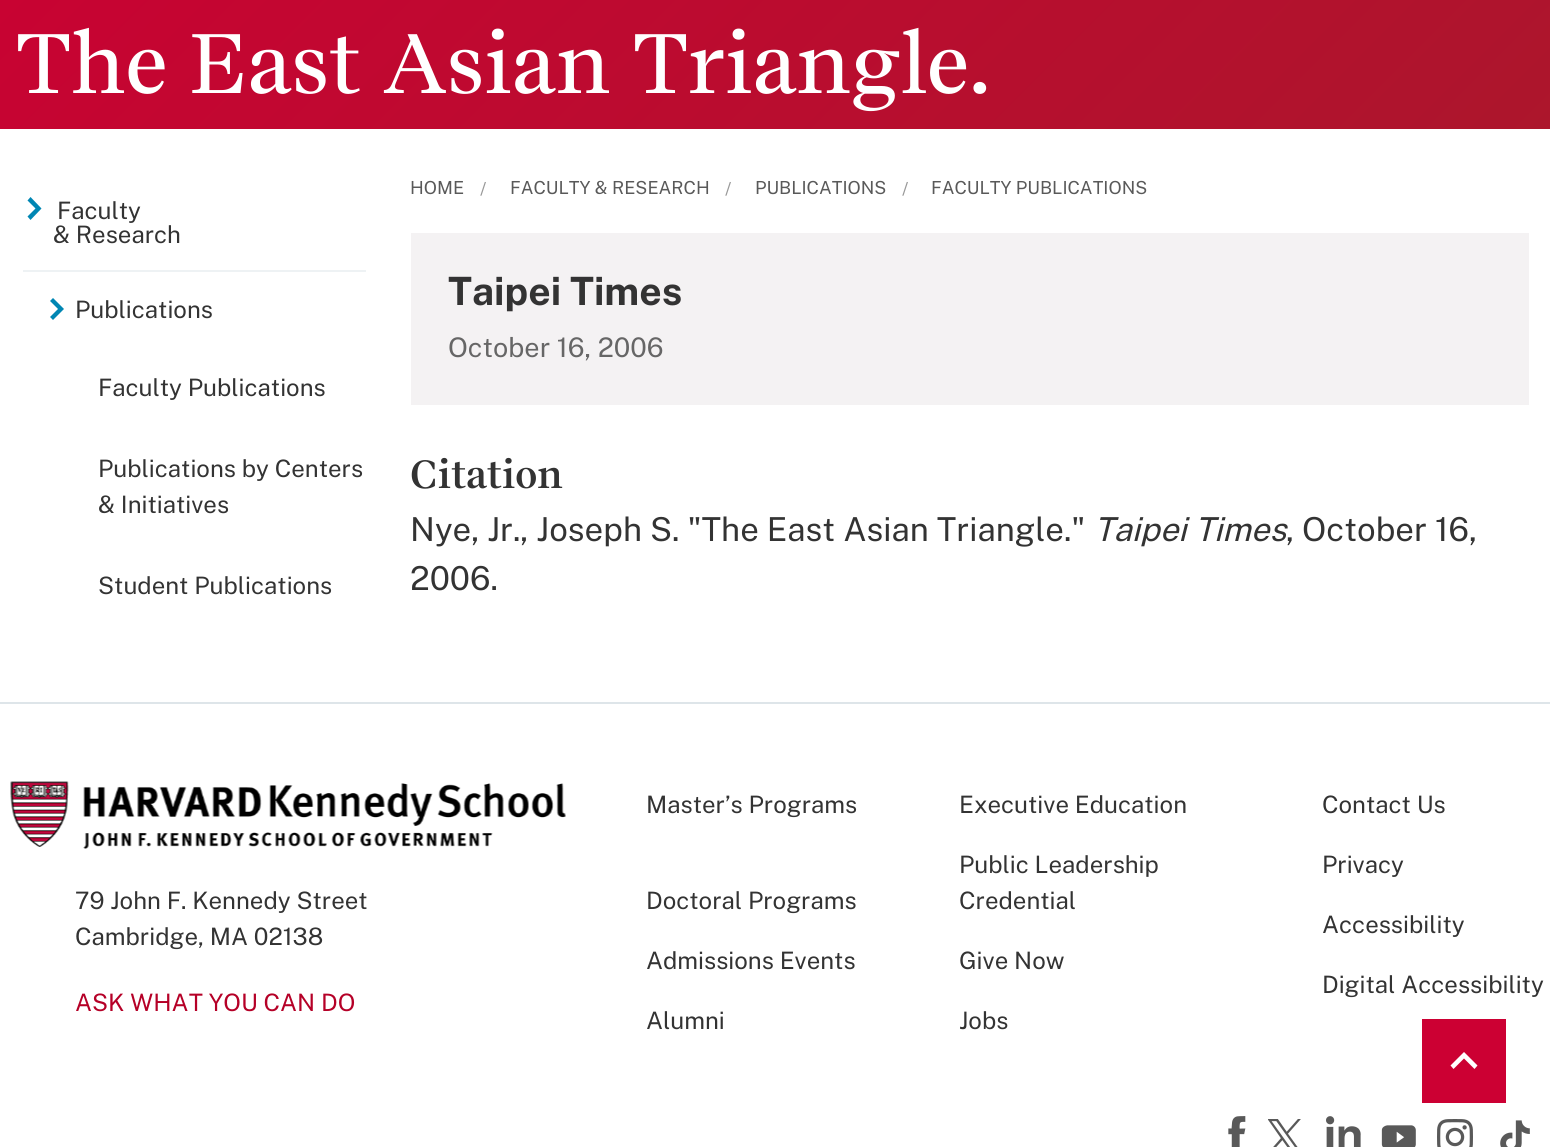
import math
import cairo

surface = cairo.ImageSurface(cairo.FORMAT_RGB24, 1550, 1147)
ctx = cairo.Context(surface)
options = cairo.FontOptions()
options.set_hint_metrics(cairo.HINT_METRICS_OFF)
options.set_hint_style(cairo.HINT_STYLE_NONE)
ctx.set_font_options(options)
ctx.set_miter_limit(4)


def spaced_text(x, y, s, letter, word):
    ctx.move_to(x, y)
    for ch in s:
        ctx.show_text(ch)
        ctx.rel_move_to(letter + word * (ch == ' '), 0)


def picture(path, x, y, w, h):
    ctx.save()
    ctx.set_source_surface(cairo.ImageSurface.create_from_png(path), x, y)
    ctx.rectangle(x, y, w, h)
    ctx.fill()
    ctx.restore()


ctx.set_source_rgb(1, 1, 1)
ctx.paint()
gradient = cairo.LinearGradient(294, -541, 1257, 423)
gradient.add_color_stop_rgba(0, 0.8, 0, 0.2, 1)
gradient.add_color_stop_rgba(1, 0.675, 0.086, 0.173, 1)
ctx.set_source(gradient)
ctx.rectangle(0, 0, 1550, 129)
ctx.fill()
ctx.select_font_face("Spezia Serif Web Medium")
ctx.set_font_size(84)
ctx.set_source_rgb(1, 1, 1)
spaced_text(15, 93, "The East Asian Triangle.", -1.5, 0)
ctx.set_source_rgb(0.933, 0.949, 0.957)
ctx.rectangle(23, 270, 343, 2)
ctx.fill()
ctx.set_source_rgb(0, 0.525, 0.702)
ctx.new_path()
ctx.move_to(41.5, 208.5)
ctx.line_to(30.5, 197)
ctx.line_to(27.5, 200.5)
ctx.line_to(35.5, 208.5)
ctx.line_to(27.5, 216.5)
ctx.line_to(30.5, 220)
ctx.close_path()
ctx.fill()
ctx.select_font_face("Public Sans Thin")
ctx.set_font_size(24)
ctx.set_source_rgb(0.2, 0.2, 0.2)
ctx.move_to(57, 219)
ctx.show_text("Faculty")
ctx.move_to(53, 243)
ctx.show_text("& Research")
ctx.set_source_rgb(0, 0.525, 0.702)
ctx.new_path()
ctx.move_to(64, 309)
ctx.line_to(53, 298)
ctx.line_to(50, 301)
ctx.line_to(58, 309)
ctx.line_to(50, 317)
ctx.line_to(53, 320)
ctx.close_path()
ctx.fill()
ctx.set_source_rgb(0.2, 0.2, 0.2)
ctx.move_to(75, 318)
ctx.show_text("Publications")
ctx.move_to(98, 396)
ctx.show_text("Faculty Publications")
ctx.move_to(98, 477)
ctx.show_text("Publications by Centers")
ctx.move_to(98, 513)
ctx.show_text("& Initiatives")
ctx.move_to(98, 594)
ctx.show_text("Student Publications")
ctx.set_font_size(18)
ctx.set_source_rgb(0.349, 0.349, 0.349)
ctx.move_to(410, 194)
ctx.show_text("HOME")
ctx.set_source_rgb(0.6, 0.6, 0.6)
ctx.move_to(480, 195)
ctx.show_text("/")
ctx.set_source_rgb(0.349, 0.349, 0.349)
ctx.move_to(510, 194)
ctx.show_text("FACULTY & RESEARCH")
ctx.set_source_rgb(0.6, 0.6, 0.6)
ctx.move_to(725, 195)
ctx.show_text("/")
ctx.set_source_rgb(0.349, 0.349, 0.349)
ctx.move_to(755, 194)
ctx.show_text("PUBLICATIONS")
ctx.set_source_rgb(0.6, 0.6, 0.6)
ctx.move_to(902, 195)
ctx.show_text("/")
ctx.set_source_rgb(0.349, 0.349, 0.349)
ctx.move_to(931, 194)
ctx.show_text("FACULTY PUBLICATIONS")
ctx.set_source_rgb(0.957, 0.949, 0.953)
ctx.rectangle(411, 233, 1118, 172)
ctx.fill()
ctx.select_font_face("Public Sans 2 Thin")
ctx.set_font_size(39)
ctx.set_source_rgb(0.2, 0.2, 0.2)
ctx.move_to(448, 305)
ctx.show_text("Taipei Times")
ctx.select_font_face("Public Sans Thin")
ctx.set_font_size(27)
ctx.set_source_rgb(0.4, 0.4, 0.4)
ctx.move_to(448, 357)
ctx.show_text("October 16, 2006")
ctx.select_font_face("Spezia Serif Web SemiBold")
ctx.set_font_size(39)
ctx.set_source_rgb(0.2, 0.2, 0.2)
spaced_text(410, 488, "Citation", -0.5, 0)
ctx.select_font_face("Public Sans Thin")
ctx.set_font_size(33)
ctx.move_to(410, 541)
ctx.show_text("Nye, Jr., Joseph S. \"The East Asian Triangle.\"")
ctx.select_font_face("Public Sans Thin", cairo.FONT_SLANT_ITALIC)
ctx.move_to(1094, 541)
ctx.show_text("Taipei Times")
ctx.select_font_face("Public Sans Thin")
ctx.move_to(1286, 541)
ctx.show_text(", October 16,")
ctx.move_to(410, 590)
ctx.show_text("2006.")
ctx.set_source_rgb(0.871, 0.898, 0.914)
ctx.rectangle(0, 702, 1550, 2)
ctx.fill()
picture("img1.png", 10, 781, 556, 68)
ctx.set_font_size(24)
ctx.set_source_rgb(0.2, 0.2, 0.2)
ctx.move_to(75, 909)
ctx.show_text("79 John F. Kennedy Street")
ctx.move_to(75, 945)
ctx.show_text("Cambridge, MA 02138")
ctx.set_source_rgb(0.71, 0, 0.153)
ctx.move_to(75, 1011)
ctx.show_text("ASK WHAT YOU CAN DO")
ctx.set_source_rgb(0.2, 0.2, 0.2)
ctx.move_to(646, 813)
ctx.show_text("Master’s Programs")
ctx.move_to(959, 813)
ctx.show_text("Executive Education")
ctx.move_to(646, 909)
ctx.show_text("Doctoral Programs")
ctx.move_to(959, 873)
ctx.show_text("Public Leadership")
ctx.move_to(959, 909)
ctx.show_text("Credential")
ctx.move_to(646, 969)
ctx.show_text("Admissions Events")
ctx.move_to(959, 969)
ctx.show_text("Give Now")
ctx.move_to(646, 1029)
ctx.show_text("Alumni")
ctx.move_to(959, 1029)
ctx.show_text("Jobs")
ctx.move_to(1322, 813)
ctx.show_text("Contact Us")
ctx.move_to(1322, 873)
ctx.show_text("Privacy")
ctx.move_to(1322, 933)
ctx.show_text("Accessibility")
ctx.move_to(1322, 993)
ctx.show_text("Digital Accessibility")
picture("img2.png", 1228, 1116, 18, 31)
picture("img3.png", 1268, 1119, 33, 28)
picture("img4.png", 1326, 1116, 35, 31)
picture("img5.png", 1381, 1125, 35, 22)
picture("img6.png", 1437, 1119, 36, 28)
picture("img7.png", 1500, 1120, 30, 27)
ctx.set_source_rgb(0.8, 0, 0.2)
ctx.rectangle(1422, 1019, 84, 84)
ctx.fill()
ctx.set_source_rgb(1, 1, 1)
ctx.new_path()
ctx.move_to(1464, 1058.5)
ctx.line_to(1453.5, 1069)
ctx.line_to(1450.5, 1065.5)
ctx.line_to(1464, 1052)
ctx.line_to(1477.5, 1065.5)
ctx.line_to(1474.5, 1069)
ctx.close_path()
ctx.fill()
surface.write_to_png("page.png")
